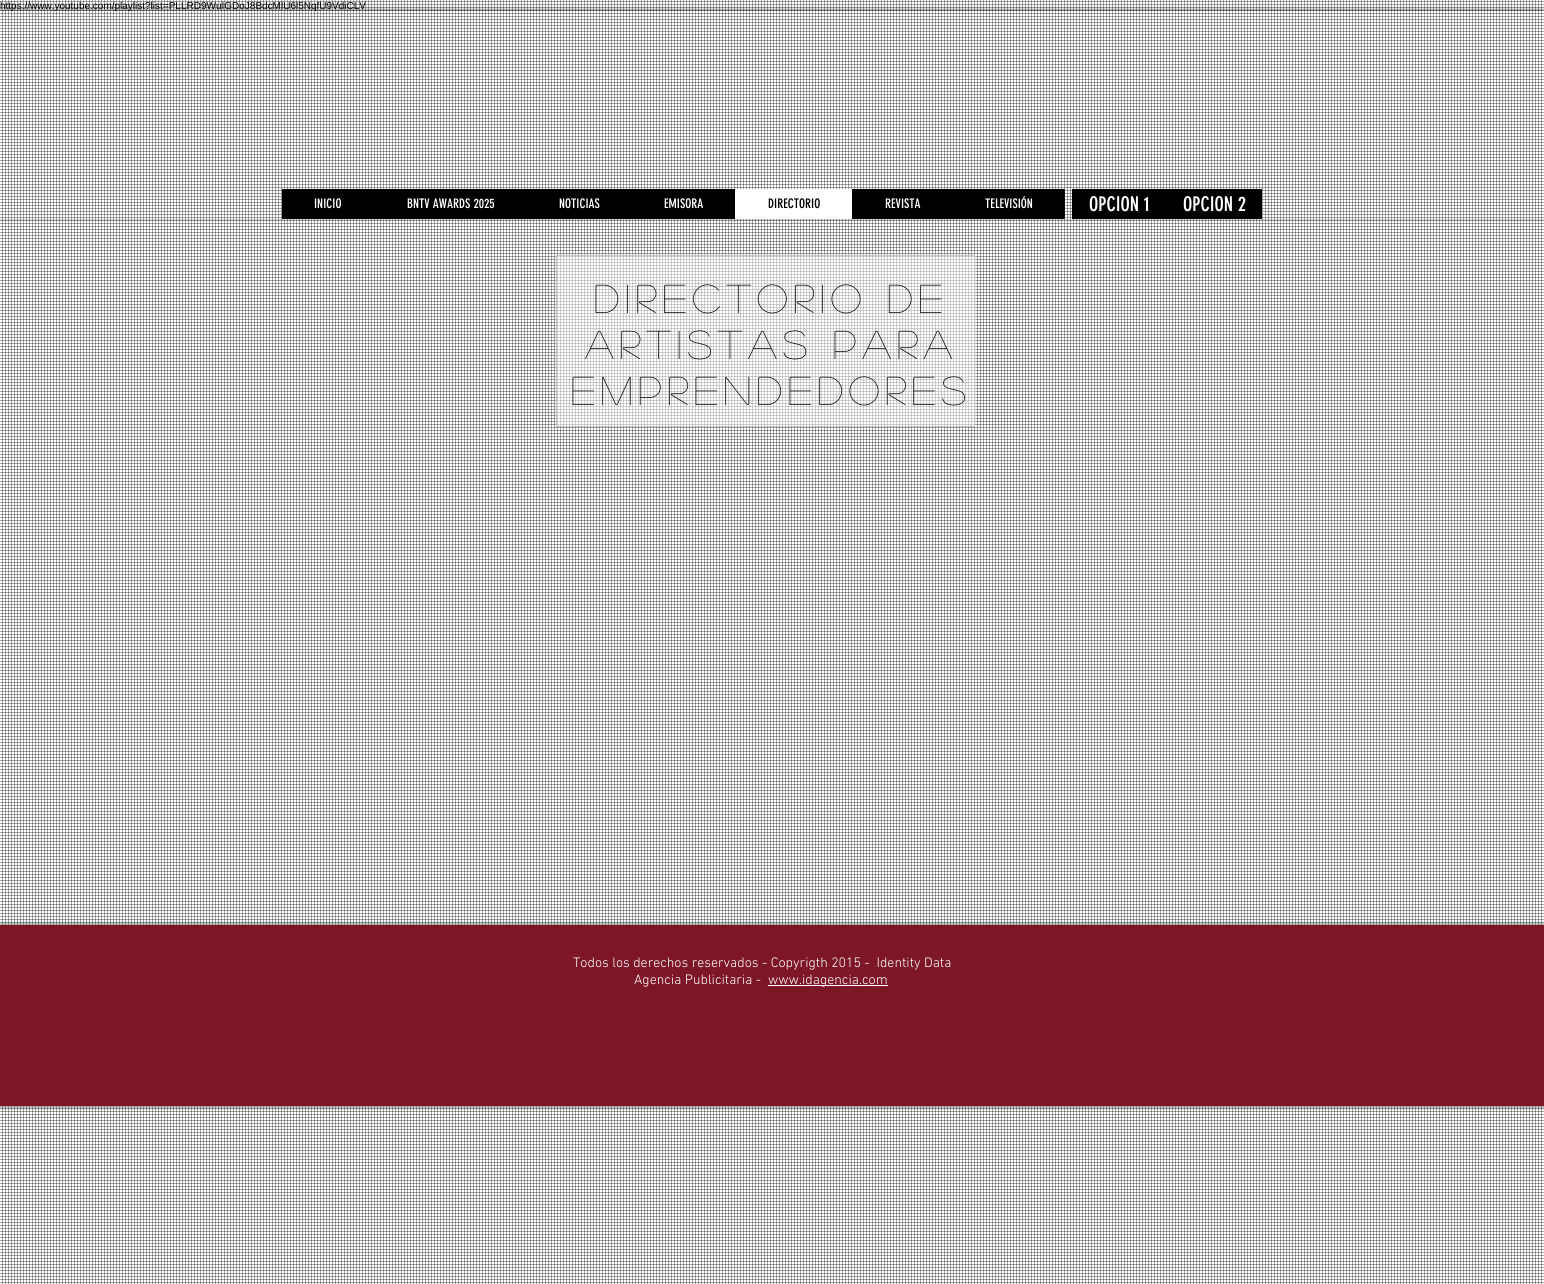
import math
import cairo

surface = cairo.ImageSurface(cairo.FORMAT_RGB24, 1544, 1284)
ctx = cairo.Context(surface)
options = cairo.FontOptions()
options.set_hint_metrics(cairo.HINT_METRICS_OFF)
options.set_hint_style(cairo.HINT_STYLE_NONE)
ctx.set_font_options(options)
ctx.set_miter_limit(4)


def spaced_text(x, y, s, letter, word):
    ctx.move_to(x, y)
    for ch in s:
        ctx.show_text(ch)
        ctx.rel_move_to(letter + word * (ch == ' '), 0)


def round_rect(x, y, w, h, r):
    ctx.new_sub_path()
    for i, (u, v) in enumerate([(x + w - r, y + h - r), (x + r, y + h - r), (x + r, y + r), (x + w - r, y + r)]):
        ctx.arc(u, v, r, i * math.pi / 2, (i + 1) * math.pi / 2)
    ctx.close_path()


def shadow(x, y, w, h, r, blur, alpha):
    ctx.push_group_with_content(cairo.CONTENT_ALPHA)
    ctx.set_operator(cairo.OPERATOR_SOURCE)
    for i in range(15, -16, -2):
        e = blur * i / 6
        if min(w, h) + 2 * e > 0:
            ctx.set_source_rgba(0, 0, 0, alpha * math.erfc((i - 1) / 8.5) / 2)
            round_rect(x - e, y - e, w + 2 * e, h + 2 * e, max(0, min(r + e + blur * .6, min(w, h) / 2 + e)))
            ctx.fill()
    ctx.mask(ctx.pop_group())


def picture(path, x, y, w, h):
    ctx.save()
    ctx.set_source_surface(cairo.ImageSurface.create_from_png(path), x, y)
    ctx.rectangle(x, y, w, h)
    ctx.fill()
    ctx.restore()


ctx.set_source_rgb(1, 1, 1)
ctx.paint()
ctx.select_font_face("Liberation Sans")
ctx.set_font_size(10)
ctx.set_source_rgb(0, 0, 0)
ctx.move_to(0, 9)
ctx.show_text("https://www.youtube.com/playlist?list=PLLRD9WuIGDoJ8BdcMlU6l5NqfU9VdiCLV")
picture("img1.png", 0, 0, 1544, 1284)
ctx.save()
ctx.set_fill_rule(cairo.FILL_RULE_EVEN_ODD)
ctx.new_path()
ctx.move_to(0, 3)
ctx.line_to(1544, 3)
ctx.line_to(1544, 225)
ctx.line_to(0, 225)
ctx.close_path()
ctx.move_to(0, 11)
ctx.line_to(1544, 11)
ctx.line_to(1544, 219)
ctx.line_to(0, 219)
ctx.close_path()
ctx.clip()
ctx.set_source_rgb(0, 0, 0)
shadow(-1, 10, 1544, 208, 0, 2, 0.6)
ctx.restore()
ctx.rectangle(282, 189, 783, 30)
ctx.fill()
ctx.select_font_face("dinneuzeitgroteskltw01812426")
ctx.set_font_size(13)
ctx.set_source_rgb(1, 1, 1)
ctx.move_to(314, 208)
ctx.show_text("INICIO")
ctx.move_to(407, 208)
ctx.show_text("BNTV AWARDS 2025")
ctx.move_to(559, 208)
ctx.show_text("NOTICIAS")
ctx.move_to(664, 208)
ctx.show_text("EMISORA")
ctx.rectangle(735, 189, 117, 30)
ctx.fill()
ctx.set_source_rgb(0, 0, 0)
ctx.move_to(768, 208)
ctx.show_text("DIRECTORIO")
ctx.set_source_rgb(1, 1, 1)
ctx.move_to(885, 208)
ctx.show_text("REVISTA")
ctx.move_to(985, 208)
ctx.show_text("TELEVISIÓN")
ctx.set_source_rgb(0, 0, 0)
ctx.rectangle(1072, 189, 190, 30)
ctx.fill()
ctx.set_font_size(20)
ctx.set_source_rgb(1, 1, 1)
ctx.move_to(1089, 211)
ctx.show_text("OPCION 1")
ctx.move_to(1183, 211)
ctx.show_text("OPCION 2")
ctx.set_source_rgba(1, 1, 1, 0.49)
ctx.rectangle(556.5, 255.5, 418, 171)
ctx.fill_preserve()
ctx.set_source_rgb(0.78, 0.78, 0.78)
ctx.set_line_width(1)
ctx.stroke()
ctx.select_font_face("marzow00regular")
ctx.set_font_size(40)
ctx.set_source_rgb(0, 0, 0)
spaced_text(594, 313, "DIRECTORIO DE", 6, 0)
spaced_text(585, 359, "ARTISTAS PARA", 6, 0)
spaced_text(571, 405, "EMPRENDEDORES", 6, 0)
ctx.set_source_rgb(0, 0, 0)
shadow(0, 925, 1544, 181, 0, 2.5, 0.7)
ctx.set_source_rgb(0.49, 0.086, 0.153)
ctx.rectangle(0, 925, 1544, 181)
ctx.fill()
ctx.select_font_face("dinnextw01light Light")
ctx.set_font_size(14)
ctx.set_source_rgb(1, 1, 1)
ctx.move_to(573, 967)
ctx.show_text("Todos los derechos reservados - Copyrigth 2015 -  Identity Data")
ctx.move_to(634, 984)
ctx.show_text("Agencia Publicitaria -")
ctx.rectangle(768, 985, 120, 1)
ctx.fill()
ctx.move_to(768, 984)
ctx.show_text("www.idagencia.com")
surface.write_to_png("page.png")
